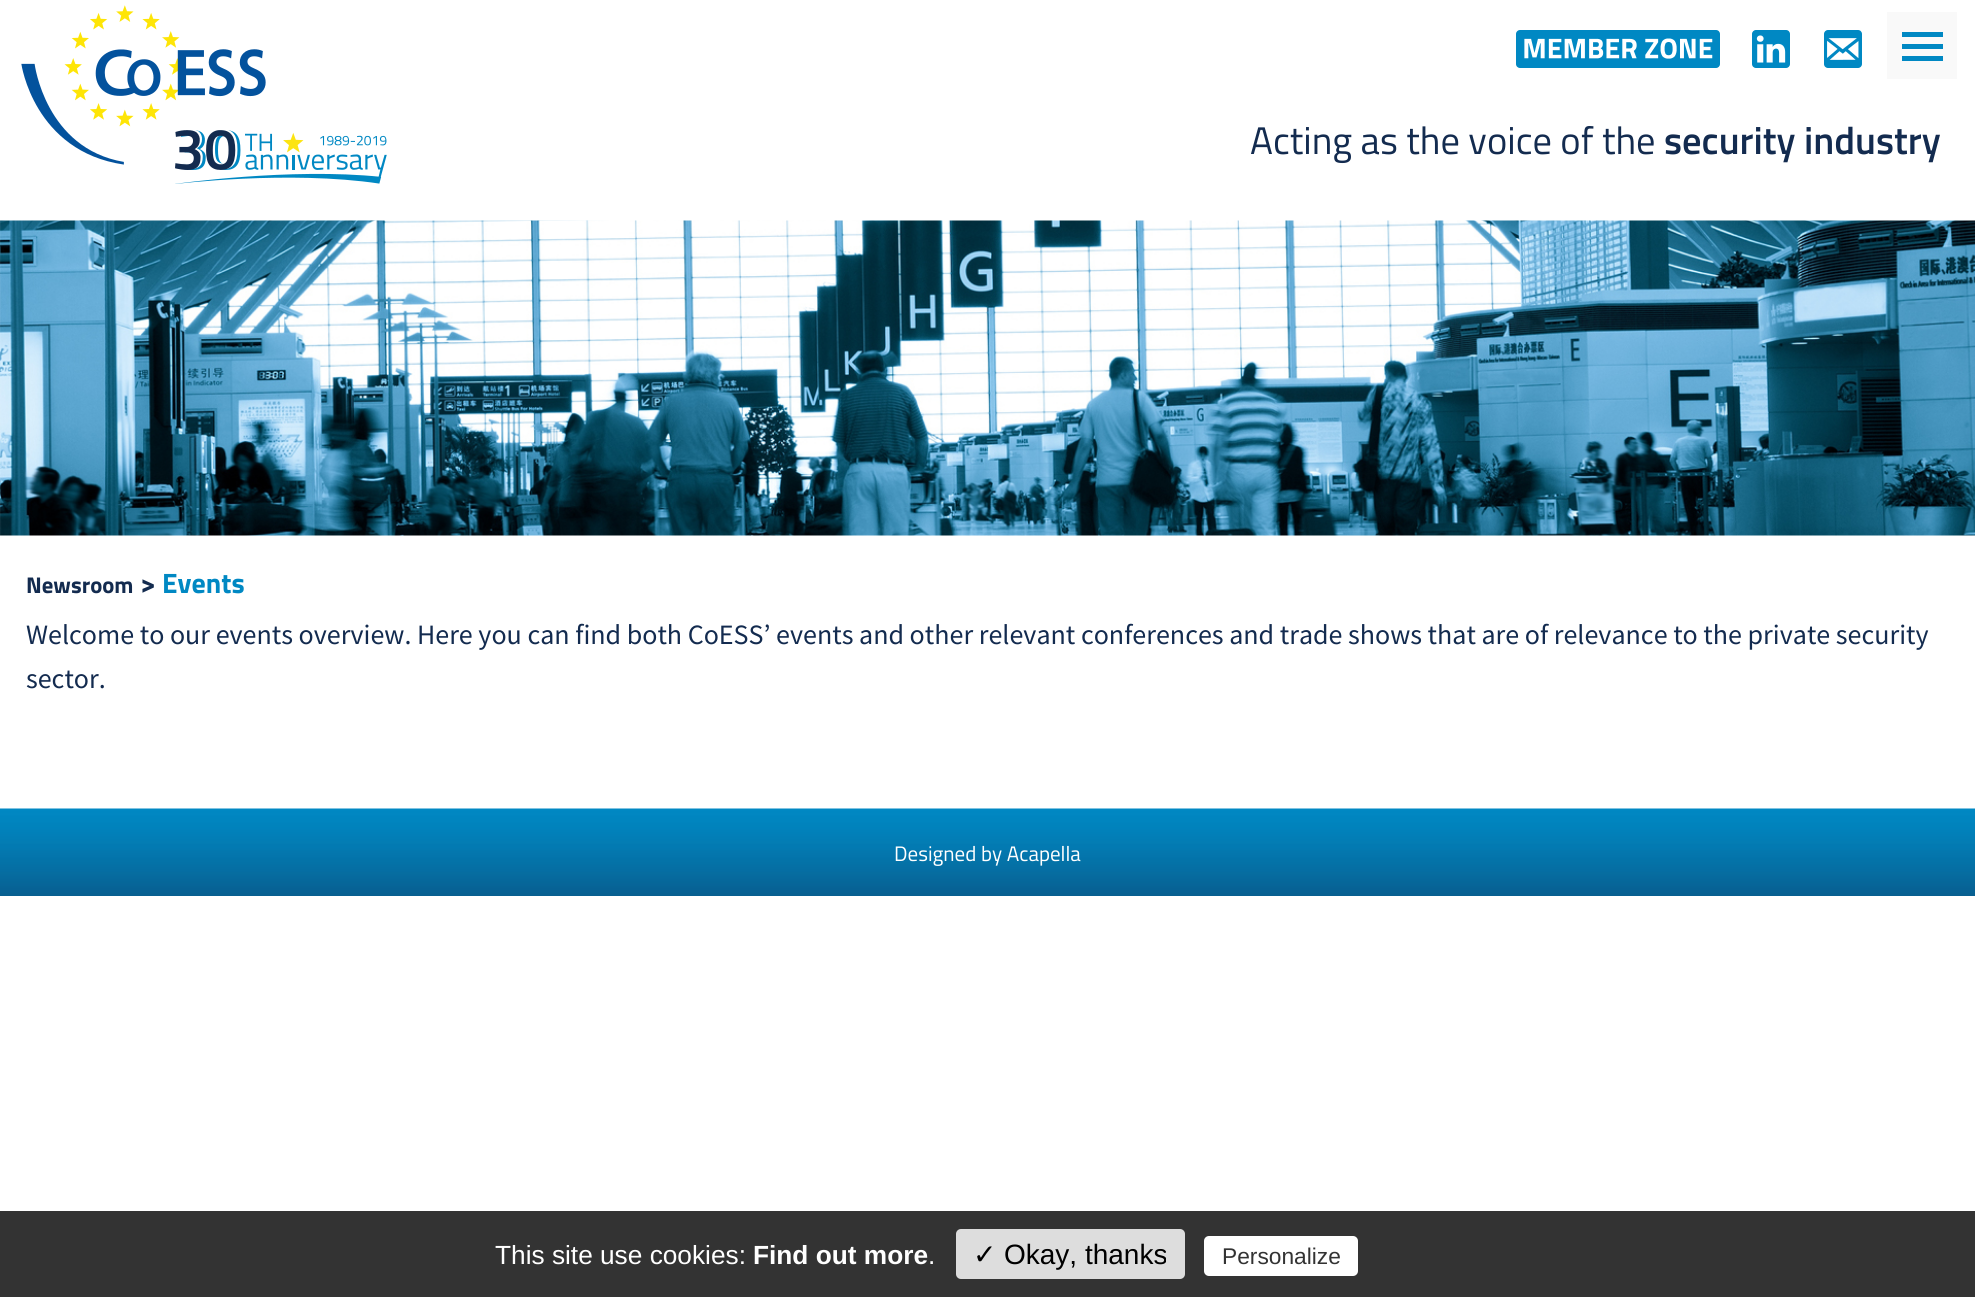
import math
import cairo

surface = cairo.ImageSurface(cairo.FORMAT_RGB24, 1975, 1297)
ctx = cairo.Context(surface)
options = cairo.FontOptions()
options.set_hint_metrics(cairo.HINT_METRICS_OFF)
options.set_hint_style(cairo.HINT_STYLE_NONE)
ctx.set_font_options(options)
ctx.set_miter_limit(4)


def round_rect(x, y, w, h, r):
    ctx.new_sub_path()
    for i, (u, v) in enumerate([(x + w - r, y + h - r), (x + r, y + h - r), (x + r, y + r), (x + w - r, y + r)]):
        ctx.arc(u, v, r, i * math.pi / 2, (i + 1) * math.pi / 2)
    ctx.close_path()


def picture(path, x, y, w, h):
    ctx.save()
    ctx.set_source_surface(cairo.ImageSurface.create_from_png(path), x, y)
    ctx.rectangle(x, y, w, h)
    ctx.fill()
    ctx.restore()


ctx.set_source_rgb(1, 1, 1)
ctx.paint()
picture("img1.png", 21, 5, 245, 160)
picture("img2.png", 175, 130, 212, 54)
picture("img3.png", 1516, 30, 204, 38)
picture("img4.png", 1752, 30, 38, 38)
picture("img5.png", 1824, 30, 38, 38)
ctx.set_source_rgb(0.973, 0.973, 0.973)
ctx.rectangle(1887, 12, 70, 67)
ctx.fill()
ctx.set_source_rgb(0, 0.533, 0.765)
ctx.rectangle(1902, 32, 41, 5)
ctx.fill()
ctx.rectangle(1902, 44, 41, 5)
ctx.fill()
ctx.rectangle(1902, 56, 41, 5)
ctx.fill()
ctx.select_font_face("Titillium Web")
ctx.set_font_size(38.5)
ctx.set_source_rgb(0.075, 0.169, 0.31)
ctx.move_to(1250, 154)
ctx.show_text("Acting as the voice of the")
ctx.select_font_face("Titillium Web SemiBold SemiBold")
ctx.move_to(1664, 154)
ctx.show_text("security industry")
picture("img6.png", 0, 220, 1975, 316)
ctx.select_font_face("Titillium Web", cairo.FONT_SLANT_NORMAL, cairo.FONT_WEIGHT_BOLD)
ctx.set_font_size(22.75)
ctx.move_to(26, 593)
ctx.show_text("Newsroom")
ctx.set_font_size(28)
ctx.move_to(140, 593)
ctx.show_text(">")
ctx.set_source_rgb(0, 0.533, 0.765)
ctx.move_to(162, 593)
ctx.show_text("Events")
ctx.select_font_face("Source Sans Pro")
ctx.set_source_rgb(0.075, 0.169, 0.31)
ctx.move_to(26, 644)
ctx.show_text("Welcome to our events overview. Here you can find both CoESS’ events and other relevant conferences and trade shows that are of relevance to the private security")
ctx.move_to(26, 688)
ctx.show_text("sector.")
picture("img7.png", 0, 808, 1975, 88)
ctx.select_font_face("Titillium Web")
ctx.set_font_size(21)
ctx.set_source_rgb(1, 1, 1)
ctx.move_to(894, 861)
ctx.show_text("Designed by Acapella")
ctx.set_source_rgb(0.2, 0.2, 0.2)
ctx.rectangle(0, 1211, 1975, 86)
ctx.fill()
ctx.select_font_face("Liberation Sans")
ctx.set_font_size(26.25)
ctx.set_source_rgb(1, 1, 1)
ctx.move_to(495, 1264)
ctx.show_text("This site use cookies:")
ctx.select_font_face("Liberation Sans", cairo.FONT_SLANT_NORMAL, cairo.FONT_WEIGHT_BOLD)
ctx.move_to(753, 1264)
ctx.show_text("Find out more")
ctx.select_font_face("Liberation Sans")
ctx.move_to(928, 1264)
ctx.show_text(".")
ctx.set_source_rgb(0.867, 0.867, 0.867)
round_rect(956, 1229, 229, 50, 5)
ctx.fill()
ctx.select_font_face("DejaVu Sans")
ctx.set_font_size(28)
ctx.set_source_rgb(0, 0, 0)
ctx.move_to(973, 1264)
ctx.show_text("✓")
ctx.select_font_face("Liberation Sans")
ctx.move_to(1004, 1264)
ctx.show_text("Okay, thanks")
ctx.set_source_rgb(1, 1, 1)
round_rect(1204, 1236, 154, 40, 5)
ctx.fill()
ctx.set_font_size(22.75)
ctx.set_source_rgb(0.2, 0.2, 0.2)
ctx.move_to(1222, 1264)
ctx.show_text("Personalize")
surface.write_to_png("page.png")
